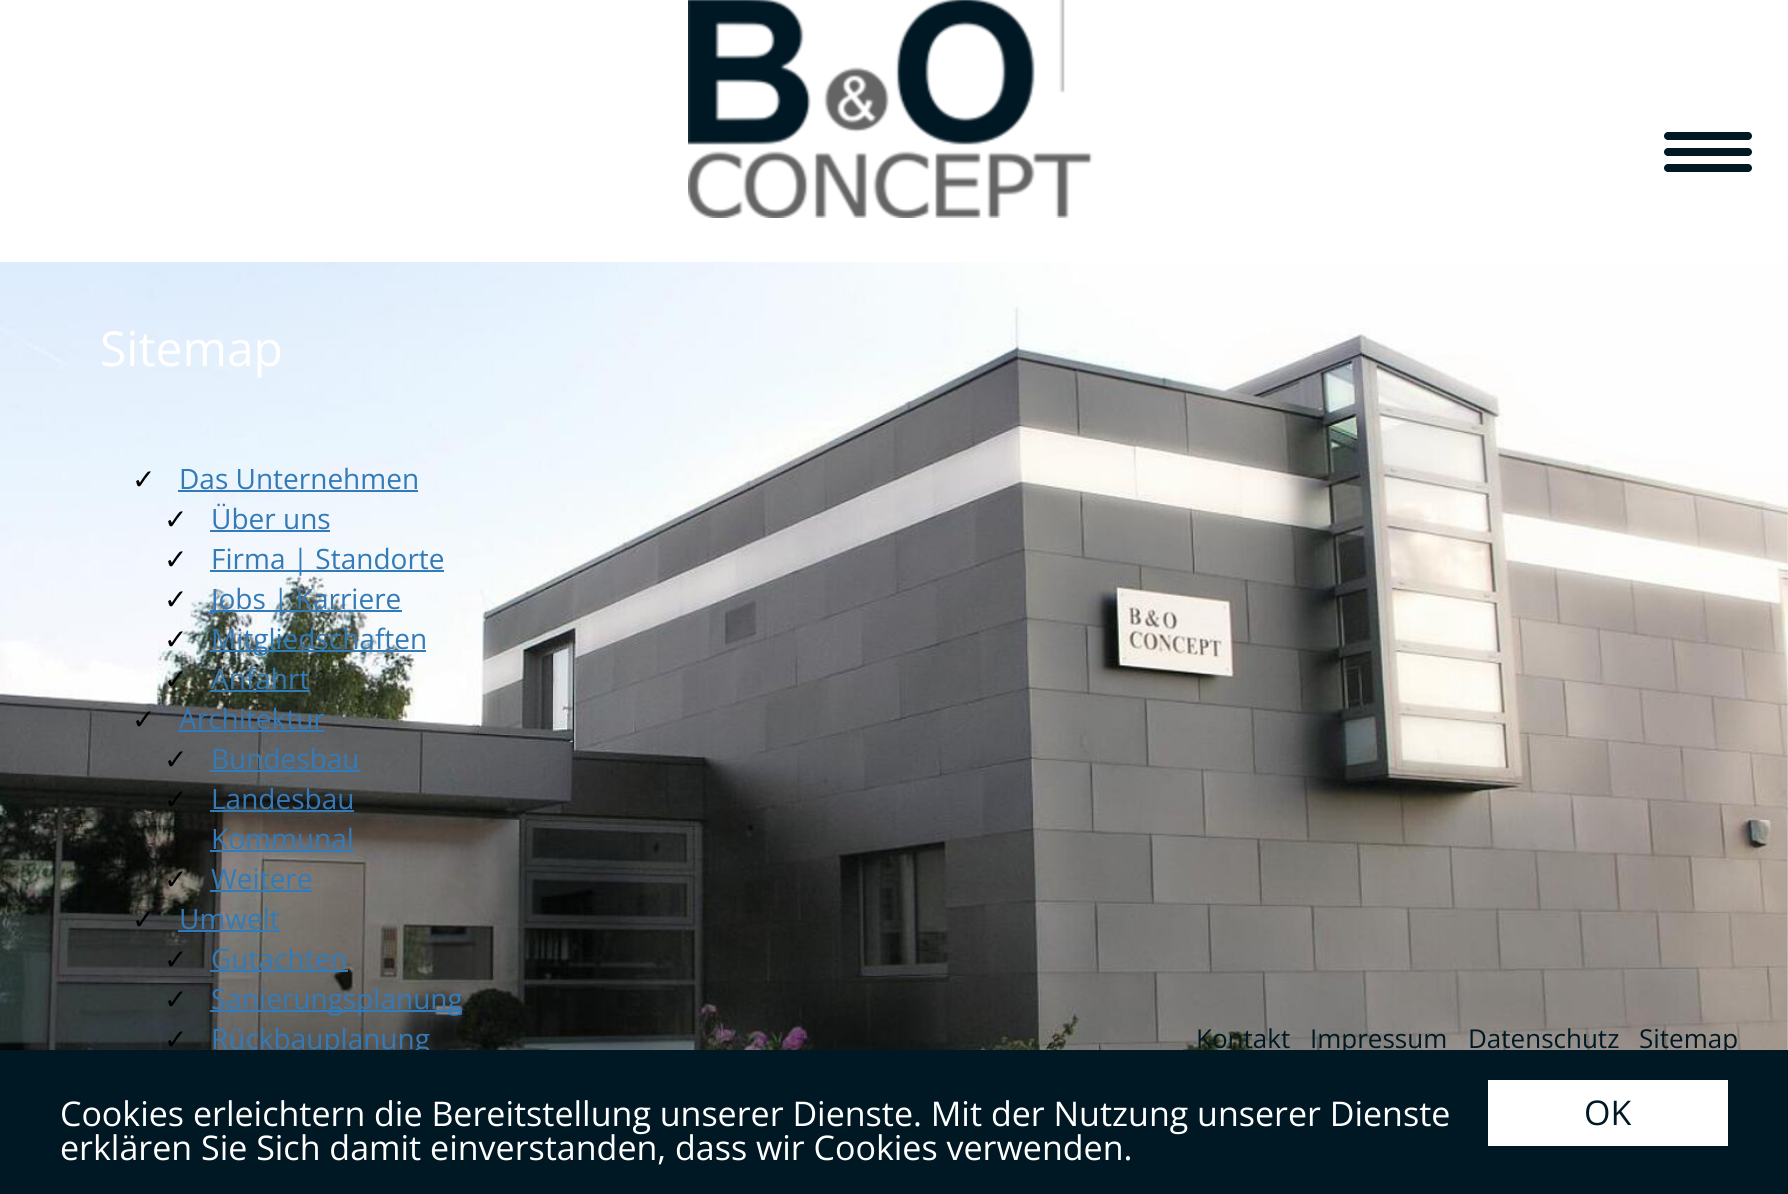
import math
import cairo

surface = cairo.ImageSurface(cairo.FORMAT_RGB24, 1788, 1194)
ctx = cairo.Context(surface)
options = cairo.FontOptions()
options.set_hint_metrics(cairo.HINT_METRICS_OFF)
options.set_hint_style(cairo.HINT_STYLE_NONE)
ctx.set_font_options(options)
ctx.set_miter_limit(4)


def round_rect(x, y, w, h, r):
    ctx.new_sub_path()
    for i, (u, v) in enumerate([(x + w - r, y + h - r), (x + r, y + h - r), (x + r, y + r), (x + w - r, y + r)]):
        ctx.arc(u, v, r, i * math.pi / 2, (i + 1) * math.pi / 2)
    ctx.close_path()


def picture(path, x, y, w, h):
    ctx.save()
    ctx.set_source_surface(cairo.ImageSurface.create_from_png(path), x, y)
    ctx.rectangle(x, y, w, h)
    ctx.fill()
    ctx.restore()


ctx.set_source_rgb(1, 1, 1)
ctx.paint()
picture("img1.png", 688, 0, 405, 218)
ctx.set_source_rgb(0, 0.094, 0.137)
round_rect(1664, 132, 88, 8, 4)
ctx.fill()
round_rect(1664, 148, 88, 8, 4)
ctx.fill()
round_rect(1664, 164, 88, 8, 4)
ctx.fill()
picture("img2.png", 0, 262, 1788, 788)
ctx.select_font_face("Open Sans")
ctx.set_font_size(48)
ctx.set_source_rgb(1, 1, 1)
ctx.move_to(100, 366)
ctx.show_text("Sitemap")
ctx.select_font_face("DejaVu Sans")
ctx.set_font_size(28)
ctx.set_source_rgb(0, 0, 0)
ctx.move_to(132, 489)
ctx.show_text("✓")
ctx.select_font_face("Open Sans")
ctx.set_source_rgb(0.2, 0.478, 0.718)
ctx.move_to(179, 489)
ctx.show_text("Das Unternehmen")
ctx.rectangle(178, 490, 240, 2)
ctx.fill()
ctx.select_font_face("DejaVu Sans")
ctx.set_source_rgb(0, 0, 0)
ctx.move_to(164, 529)
ctx.show_text("✓")
ctx.select_font_face("Open Sans")
ctx.set_source_rgb(0.2, 0.478, 0.718)
ctx.move_to(211, 529)
ctx.show_text("Über uns")
ctx.rectangle(210, 530, 120, 2)
ctx.fill()
ctx.select_font_face("DejaVu Sans")
ctx.set_source_rgb(0, 0, 0)
ctx.move_to(164, 569)
ctx.show_text("✓")
ctx.set_source_rgb(0.2, 0.478, 0.718)
ctx.rectangle(210, 570, 234, 2)
ctx.fill()
ctx.select_font_face("Open Sans")
ctx.move_to(211, 569)
ctx.show_text("Firma | Standorte")
ctx.select_font_face("DejaVu Sans")
ctx.set_source_rgb(0, 0, 0)
ctx.move_to(164, 609)
ctx.show_text("✓")
ctx.set_source_rgb(0.2, 0.478, 0.718)
ctx.rectangle(210, 610, 192, 2)
ctx.fill()
ctx.select_font_face("Open Sans")
ctx.move_to(211, 609)
ctx.show_text("Jobs | Karriere")
ctx.select_font_face("DejaVu Sans")
ctx.set_source_rgb(0, 0, 0)
ctx.move_to(164, 649)
ctx.show_text("✓")
ctx.set_source_rgb(0.2, 0.478, 0.718)
ctx.rectangle(210, 650, 216, 2)
ctx.fill()
ctx.select_font_face("Open Sans")
ctx.move_to(211, 649)
ctx.show_text("Mitgliedschaften")
ctx.select_font_face("DejaVu Sans")
ctx.set_source_rgb(0, 0, 0)
ctx.move_to(164, 689)
ctx.show_text("✓")
ctx.select_font_face("Open Sans")
ctx.set_source_rgb(0.2, 0.478, 0.718)
ctx.move_to(211, 689)
ctx.show_text("Anfahrt")
ctx.rectangle(210, 690, 100, 2)
ctx.fill()
ctx.select_font_face("DejaVu Sans")
ctx.set_source_rgb(0, 0, 0)
ctx.move_to(132, 729)
ctx.show_text("✓")
ctx.select_font_face("Open Sans")
ctx.set_source_rgb(0.2, 0.478, 0.718)
ctx.move_to(179, 729)
ctx.show_text("Architektur")
ctx.rectangle(178, 730, 146, 2)
ctx.fill()
ctx.select_font_face("DejaVu Sans")
ctx.set_source_rgb(0, 0, 0)
ctx.move_to(164, 769)
ctx.show_text("✓")
ctx.select_font_face("Open Sans")
ctx.set_source_rgb(0.2, 0.478, 0.718)
ctx.move_to(211, 769)
ctx.show_text("Bundesbau")
ctx.rectangle(210, 770, 150, 2)
ctx.fill()
ctx.select_font_face("DejaVu Sans")
ctx.set_source_rgb(0, 0, 0)
ctx.move_to(164, 809)
ctx.show_text("✓")
ctx.select_font_face("Open Sans")
ctx.set_source_rgb(0.2, 0.478, 0.718)
ctx.move_to(211, 809)
ctx.show_text("Landesbau")
ctx.rectangle(210, 810, 144, 2)
ctx.fill()
ctx.move_to(211, 849)
ctx.show_text("Kommunal")
ctx.rectangle(210, 850, 144, 2)
ctx.fill()
ctx.select_font_face("DejaVu Sans")
ctx.set_source_rgb(0, 0, 0)
ctx.move_to(164, 889)
ctx.show_text("✓")
ctx.select_font_face("Open Sans")
ctx.set_source_rgb(0.2, 0.478, 0.718)
ctx.move_to(211, 889)
ctx.show_text("Weitere")
ctx.rectangle(210, 890, 102, 2)
ctx.fill()
ctx.select_font_face("DejaVu Sans")
ctx.set_source_rgb(0, 0, 0)
ctx.move_to(132, 929)
ctx.show_text("✓")
ctx.select_font_face("Open Sans")
ctx.set_source_rgb(0.2, 0.478, 0.718)
ctx.move_to(179, 929)
ctx.show_text("Umwelt")
ctx.rectangle(178, 930, 102, 2)
ctx.fill()
ctx.select_font_face("DejaVu Sans")
ctx.set_source_rgb(0, 0, 0)
ctx.move_to(164, 969)
ctx.show_text("✓")
ctx.select_font_face("Open Sans")
ctx.set_source_rgb(0.2, 0.478, 0.718)
ctx.move_to(211, 969)
ctx.show_text("Gutachten")
ctx.rectangle(210, 970, 138, 2)
ctx.fill()
ctx.select_font_face("DejaVu Sans")
ctx.set_source_rgb(0, 0, 0)
ctx.move_to(164, 1009)
ctx.show_text("✓")
ctx.set_source_rgb(0.2, 0.478, 0.718)
ctx.rectangle(210, 1010, 252, 2)
ctx.fill()
ctx.select_font_face("Open Sans")
ctx.move_to(211, 1009)
ctx.show_text("Sanierungsplanung")
ctx.select_font_face("DejaVu Sans")
ctx.set_source_rgb(0, 0, 0)
ctx.move_to(164, 1049)
ctx.show_text("✓")
ctx.select_font_face("Open Sans")
ctx.set_source_rgb(0.2, 0.478, 0.718)
ctx.move_to(211, 1049)
ctx.show_text("Rückbauplanung")
ctx.set_font_size(26)
ctx.set_source_rgb(0, 0.094, 0.137)
ctx.move_to(1196, 1048)
ctx.show_text("Kontakt")
ctx.move_to(1310, 1048)
ctx.show_text("Impressum")
ctx.move_to(1468, 1048)
ctx.show_text("Datenschutz")
ctx.move_to(1639, 1048)
ctx.show_text("Sitemap")
ctx.rectangle(0, 1050, 1788, 144)
ctx.fill()
ctx.set_font_size(34)
ctx.set_source_rgb(1, 1, 1)
ctx.move_to(60, 1126)
ctx.show_text("Cookies erleichtern die Bereitstellung unserer Dienste. Mit der Nutzung unserer Dienste")
ctx.move_to(60, 1160)
ctx.show_text("erklären Sie Sich damit einverstanden, dass wir Cookies verwenden.")
ctx.rectangle(1488, 1080, 240, 66)
ctx.fill()
ctx.set_source_rgb(0, 0.094, 0.137)
ctx.move_to(1584, 1125)
ctx.show_text("OK")
surface.write_to_png("page.png")
